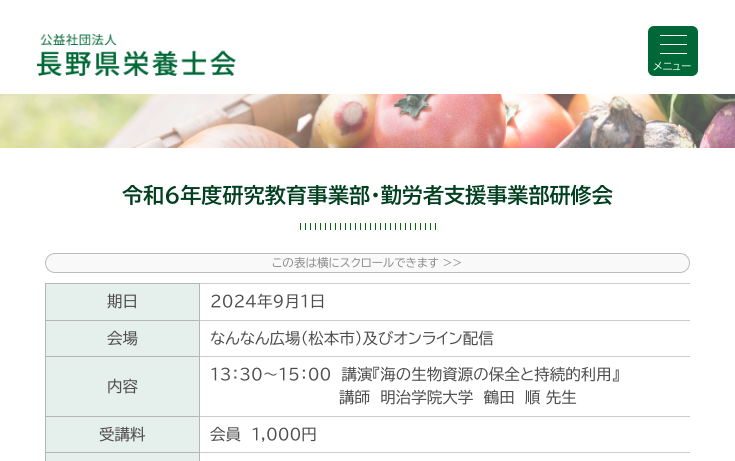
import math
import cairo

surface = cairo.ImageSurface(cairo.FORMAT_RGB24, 735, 461)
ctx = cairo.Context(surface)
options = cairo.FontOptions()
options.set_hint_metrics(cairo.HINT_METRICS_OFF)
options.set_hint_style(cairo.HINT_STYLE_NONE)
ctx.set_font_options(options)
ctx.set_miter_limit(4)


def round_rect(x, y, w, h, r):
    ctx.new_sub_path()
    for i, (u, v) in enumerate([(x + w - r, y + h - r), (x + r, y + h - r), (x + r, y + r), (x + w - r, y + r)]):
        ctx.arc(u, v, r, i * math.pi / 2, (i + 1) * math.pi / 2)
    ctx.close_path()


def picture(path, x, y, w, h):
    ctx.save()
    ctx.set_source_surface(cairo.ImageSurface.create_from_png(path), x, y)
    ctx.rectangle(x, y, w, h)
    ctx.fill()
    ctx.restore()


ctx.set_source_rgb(1, 1, 1)
ctx.paint()
picture("img1.png", 37, 34, 199, 42)
ctx.set_source_rgb(0, 0.408, 0.216)
round_rect(648, 26, 50, 50, 6)
ctx.fill()
ctx.set_source_rgb(1, 1, 1)
ctx.rectangle(660, 35, 27, 1)
ctx.fill()
ctx.rectangle(660, 44, 27, 1)
ctx.fill()
ctx.rectangle(660, 53, 27, 1)
ctx.fill()
ctx.select_font_face("BIZ UDPGothic")
ctx.set_font_size(10.5)
ctx.move_to(653, 70)
ctx.show_text("メニュー")
picture("img2.png", 0, 94, 735, 54)
picture("img3.png", 300, 223, 136, 7)
ctx.select_font_face("BIZ UDPGothic", cairo.FONT_SLANT_NORMAL, cairo.FONT_WEIGHT_BOLD)
ctx.set_font_size(21.1)
ctx.set_source_rgb(0, 0.247, 0.122)
ctx.move_to(122, 203)
ctx.show_text("令和6年度研究教育事業部・勤労者支援事業部研修会")
ctx.set_source_rgb(0.976, 0.976, 0.976)
round_rect(45.5, 253.5, 644, 19, 9.5)
ctx.fill_preserve()
ctx.set_source_rgb(0.733, 0.733, 0.733)
ctx.set_line_width(1)
ctx.stroke()
ctx.select_font_face("BIZ UDPGothic")
ctx.set_font_size(11.6)
ctx.set_source_rgb(0.541, 0.541, 0.541)
ctx.move_to(272, 267)
ctx.show_text("この表は横にスクロールできます >>")
ctx.set_source_rgb(0.898, 0.937, 0.918)
ctx.rectangle(46, 284, 153, 36)
ctx.fill()
ctx.set_source_rgb(0.8, 0.8, 0.8)
ctx.rectangle(199, 283, 491, 1)
ctx.fill()
ctx.set_source_rgb(0.71, 0.71, 0.71)
ctx.rectangle(199, 452, 1, 9)
ctx.fill()
ctx.rectangle(45, 452, 155, 1)
ctx.fill()
ctx.set_source_rgb(0.8, 0.8, 0.8)
ctx.rectangle(199, 452, 491, 1)
ctx.fill()
ctx.set_source_rgb(0.71, 0.71, 0.71)
ctx.rectangle(199, 416, 1, 37)
ctx.fill()
ctx.rectangle(45, 416, 155, 1)
ctx.fill()
ctx.set_source_rgb(0.8, 0.8, 0.8)
ctx.rectangle(199, 416, 491, 1)
ctx.fill()
ctx.set_source_rgb(0.71, 0.71, 0.71)
ctx.rectangle(199, 356, 1, 61)
ctx.fill()
ctx.rectangle(45, 356, 155, 1)
ctx.fill()
ctx.set_source_rgb(0.8, 0.8, 0.8)
ctx.rectangle(199, 356, 491, 1)
ctx.fill()
ctx.set_source_rgb(0.71, 0.71, 0.71)
ctx.rectangle(199, 320, 1, 37)
ctx.fill()
ctx.rectangle(45, 320, 155, 1)
ctx.fill()
ctx.set_source_rgb(0.8, 0.8, 0.8)
ctx.rectangle(199, 320, 491, 1)
ctx.fill()
ctx.set_source_rgb(0.71, 0.71, 0.71)
ctx.rectangle(199, 283, 1, 38)
ctx.fill()
ctx.rectangle(45, 283, 155, 1)
ctx.fill()
ctx.rectangle(45, 452, 1, 9)
ctx.fill()
ctx.rectangle(45, 416, 1, 37)
ctx.fill()
ctx.rectangle(45, 356, 1, 61)
ctx.fill()
ctx.rectangle(45, 320, 1, 37)
ctx.fill()
ctx.rectangle(45, 283, 1, 38)
ctx.fill()
ctx.set_font_size(15.5)
ctx.set_source_rgb(0.302, 0.302, 0.302)
ctx.move_to(107, 307)
ctx.show_text("期日")
ctx.move_to(210, 307)
ctx.show_text("2024年9月1日")
ctx.set_source_rgb(0.898, 0.937, 0.918)
ctx.rectangle(46, 321, 153, 35)
ctx.fill()
ctx.set_source_rgb(0.302, 0.302, 0.302)
ctx.move_to(107, 344)
ctx.show_text("会場")
ctx.move_to(210, 344)
ctx.show_text("なんなん広場（松本市）及びオンライン配信")
ctx.set_source_rgb(0.898, 0.937, 0.918)
ctx.rectangle(46, 357, 153, 59)
ctx.fill()
ctx.set_source_rgb(0.302, 0.302, 0.302)
ctx.move_to(107, 392)
ctx.show_text("内容")
ctx.move_to(210, 380)
ctx.show_text("13：30～15：00　講演『海の生物資源の保全と持続的利用』")
ctx.move_to(339, 403)
ctx.show_text("講師　明治学院大学　鶴田　順 先生")
ctx.set_source_rgb(0.898, 0.937, 0.918)
ctx.rectangle(46, 417, 153, 35)
ctx.fill()
ctx.set_source_rgb(0.302, 0.302, 0.302)
ctx.move_to(99, 440)
ctx.show_text("受講料")
ctx.move_to(210, 440)
ctx.show_text("会員　1,000円")
ctx.set_source_rgb(0.898, 0.937, 0.918)
ctx.rectangle(46, 453, 153, 8)
ctx.fill()
surface.write_to_png("page.png")
